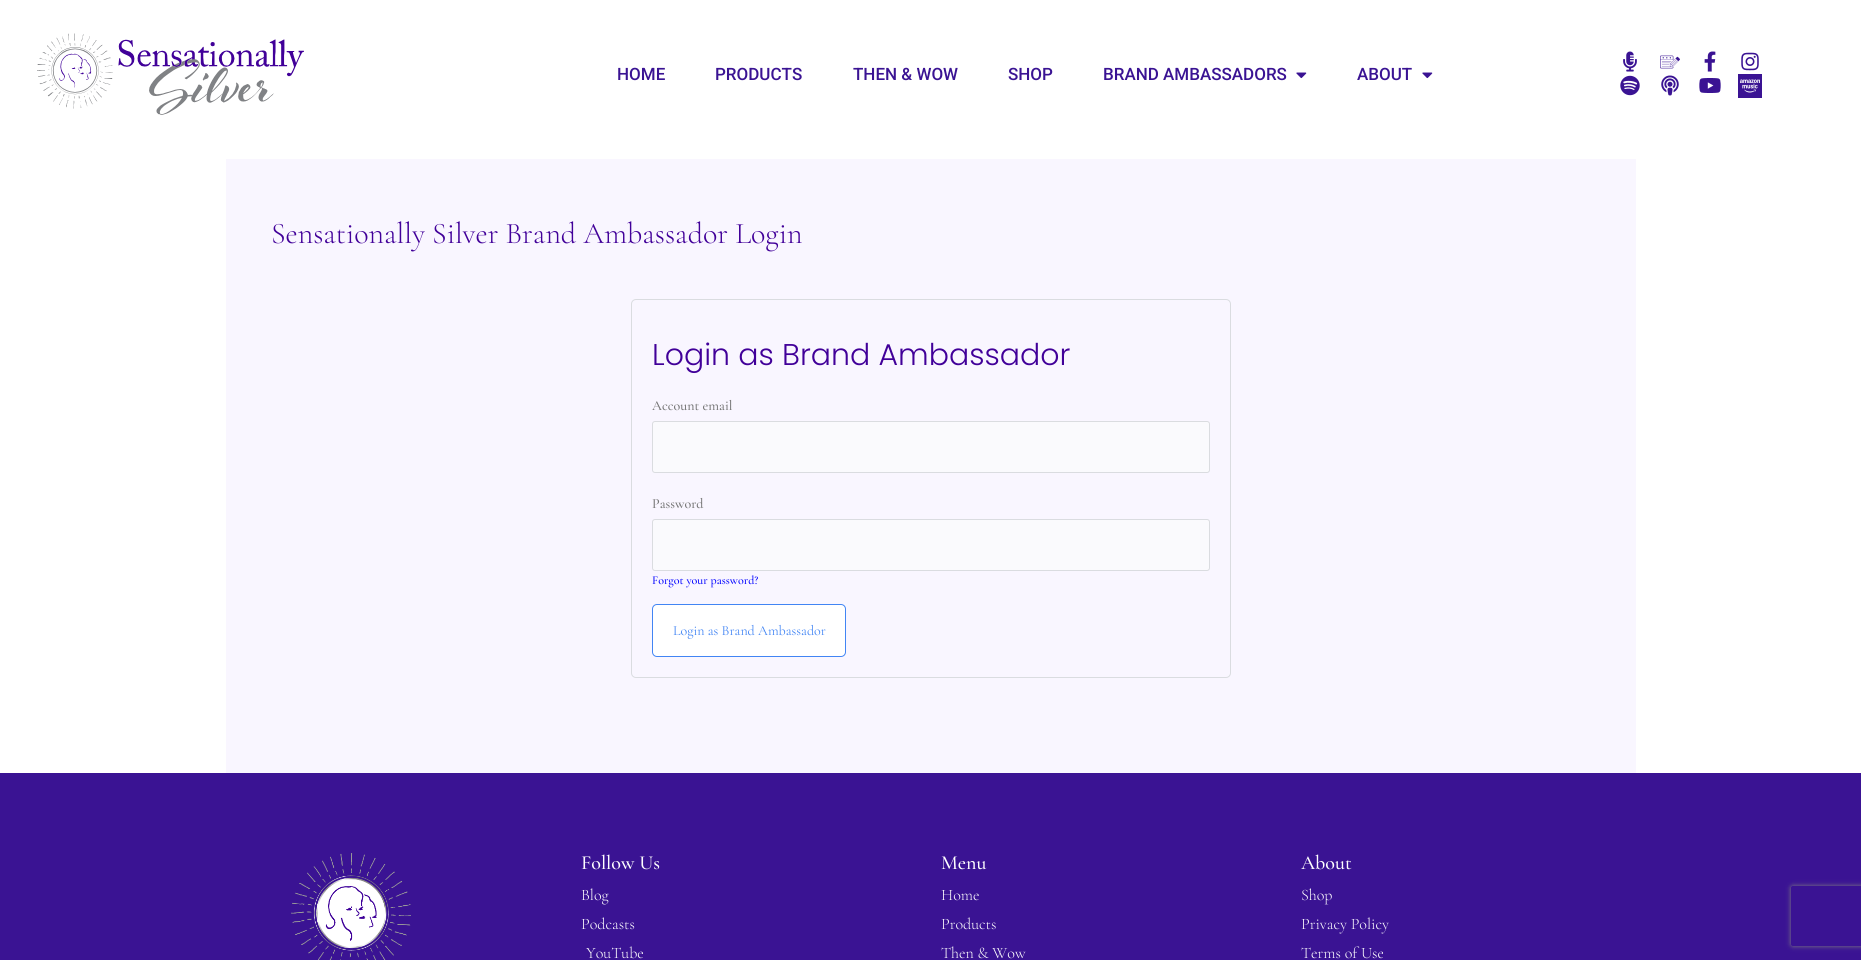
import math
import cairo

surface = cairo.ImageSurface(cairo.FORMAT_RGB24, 1861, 960)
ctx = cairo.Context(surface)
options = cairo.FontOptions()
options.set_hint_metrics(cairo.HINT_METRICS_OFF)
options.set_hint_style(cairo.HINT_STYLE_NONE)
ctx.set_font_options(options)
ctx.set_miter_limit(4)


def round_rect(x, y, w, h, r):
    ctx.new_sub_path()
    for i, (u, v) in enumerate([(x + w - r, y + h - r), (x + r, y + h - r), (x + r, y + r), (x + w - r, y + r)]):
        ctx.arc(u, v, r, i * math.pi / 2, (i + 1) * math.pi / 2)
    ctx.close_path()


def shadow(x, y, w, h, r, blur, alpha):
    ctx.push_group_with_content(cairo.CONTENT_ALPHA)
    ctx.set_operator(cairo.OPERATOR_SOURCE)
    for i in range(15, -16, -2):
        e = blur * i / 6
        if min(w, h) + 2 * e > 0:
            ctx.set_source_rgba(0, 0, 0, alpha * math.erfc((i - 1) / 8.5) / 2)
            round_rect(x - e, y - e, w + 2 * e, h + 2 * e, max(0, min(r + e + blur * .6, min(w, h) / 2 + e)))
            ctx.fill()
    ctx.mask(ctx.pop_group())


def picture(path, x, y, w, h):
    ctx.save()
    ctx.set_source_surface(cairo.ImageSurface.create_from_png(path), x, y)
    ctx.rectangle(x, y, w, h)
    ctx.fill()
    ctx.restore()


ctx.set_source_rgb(1, 1, 1)
ctx.paint()
picture("img1.png", 37, 33, 267, 82)
ctx.select_font_face("Roboto Medium")
ctx.set_font_size(17)
ctx.set_source_rgb(0.227, 0.075, 0.576)
ctx.move_to(617, 80)
ctx.show_text("HOME")
ctx.move_to(715, 80)
ctx.show_text("PRODUCTS")
ctx.move_to(853, 80)
ctx.show_text("THEN & WOW")
ctx.move_to(1008, 80)
ctx.show_text("SHOP")
ctx.move_to(1103, 80)
ctx.show_text("BRAND AMBASSADORS")
picture("img2.png", 1296, 72, 11, 7)
ctx.move_to(1357, 80)
ctx.show_text("ABOUT")
picture("img2.png", 1422, 72, 11, 7)
picture("img3.png", 1623, 51, 14, 21)
picture("img4.png", 1660, 55, 20, 14)
picture("img5.png", 1704, 51, 12, 21)
picture("img6.png", 1741, 52, 18, 19)
picture("img7.png", 1620, 75, 20, 21)
picture("img8.png", 1661, 75, 18, 21)
picture("img9.png", 1699, 78, 22, 15)
ctx.rectangle(1738, 74, 24, 24)
ctx.fill()
picture("img10.png", 1740, 79, 20, 14)
ctx.set_source_rgb(0.976, 0.961, 1)
ctx.rectangle(226, 159, 1410, 614)
ctx.fill()
ctx.select_font_face("Cormorant Garamond Light")
ctx.set_font_size(30)
ctx.set_source_rgb(0.255, 0, 0.6)
ctx.move_to(271, 243)
ctx.show_text("Sensationally Silver Brand Ambassador Login")
round_rect(631.5, 299.5, 599, 378, 4.5)
ctx.set_source_rgb(0.855, 0.863, 0.878)
ctx.set_line_width(1)
ctx.stroke()
ctx.select_font_face("Poppins Light")
ctx.set_source_rgb(0.255, 0, 0.6)
ctx.move_to(652, 365)
ctx.show_text("Login as Brand Ambassador")
ctx.select_font_face("Cormorant Garamond Medium")
ctx.set_font_size(14)
ctx.set_source_rgb(0.459, 0.459, 0.459)
ctx.move_to(652, 410)
ctx.show_text("Account email")
ctx.set_source_rgb(0.98, 0.98, 0.992)
round_rect(652.5, 421.5, 557, 51, 2.5)
ctx.fill_preserve()
ctx.set_source_rgb(0.855, 0.863, 0.878)
ctx.stroke()
ctx.set_source_rgb(0.459, 0.459, 0.459)
ctx.move_to(652, 508)
ctx.show_text("Password")
ctx.set_source_rgb(0.98, 0.98, 0.992)
round_rect(652.5, 519.5, 557, 51, 2.5)
ctx.fill_preserve()
ctx.set_source_rgb(0.855, 0.863, 0.878)
ctx.stroke()
ctx.set_font_size(12)
ctx.set_source_rgb(0, 0, 1)
ctx.move_to(652, 584)
ctx.show_text("Forgot your password?")
ctx.set_source_rgb(1, 1, 1)
round_rect(652.5, 604.5, 193, 52, 4.5)
ctx.fill_preserve()
ctx.set_source_rgb(0.259, 0.522, 0.957)
ctx.stroke()
ctx.select_font_face("Cormorant Garamond")
ctx.set_font_size(14)
ctx.move_to(673, 635)
ctx.show_text("Login as Brand Ambassador")
ctx.set_source_rgb(0.227, 0.075, 0.576)
ctx.rectangle(0, 773, 1861, 187)
ctx.fill()
picture("img11.png", 291, 853, 120, 107)
ctx.select_font_face("Cormorant Garamond Medium")
ctx.set_font_size(20)
ctx.set_source_rgb(1, 1, 1)
ctx.move_to(581, 869)
ctx.show_text("Follow Us")
ctx.select_font_face("Cormorant Garamond Light")
ctx.set_font_size(16)
ctx.move_to(581, 900)
ctx.show_text("Blog")
ctx.move_to(581, 929)
ctx.show_text("Podcasts")
ctx.move_to(586, 958)
ctx.show_text("YouTube")
ctx.select_font_face("Cormorant Garamond Medium")
ctx.set_font_size(20)
ctx.move_to(941, 869)
ctx.show_text("Menu")
ctx.select_font_face("Cormorant Garamond Light")
ctx.set_font_size(16)
ctx.move_to(941, 900)
ctx.show_text("Home")
ctx.move_to(941, 929)
ctx.show_text("Products")
ctx.move_to(941, 958)
ctx.show_text("Then & Wow")
ctx.select_font_face("Cormorant Garamond Medium")
ctx.set_font_size(20)
ctx.move_to(1301, 869)
ctx.show_text("About")
ctx.select_font_face("Cormorant Garamond Light")
ctx.set_font_size(16)
ctx.move_to(1301, 900)
ctx.show_text("Shop")
ctx.move_to(1301, 929)
ctx.show_text("Privacy Policy")
ctx.move_to(1301, 958)
ctx.show_text("Terms of Use")
ctx.save()
ctx.set_fill_rule(cairo.FILL_RULE_EVEN_ODD)
ctx.new_path()
ctx.move_to(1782, 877)
ctx.line_to(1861, 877)
ctx.line_to(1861, 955)
ctx.line_to(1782, 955)
ctx.close_path()
ctx.move_to(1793, 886)
ctx.line_to(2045, 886)
ctx.curve_to(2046, 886, 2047, 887, 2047, 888)
ctx.line_to(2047, 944)
ctx.curve_to(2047, 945, 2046, 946, 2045, 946)
ctx.line_to(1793, 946)
ctx.curve_to(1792, 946, 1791, 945, 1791, 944)
ctx.line_to(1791, 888)
ctx.curve_to(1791, 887, 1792, 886, 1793, 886)
ctx.close_path()
ctx.clip()
ctx.set_source_rgb(0.502, 0.502, 0.502)
shadow(1791, 886, 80, 60, 2, 2.5, 1)
ctx.restore()
surface.write_to_png("page.png")
